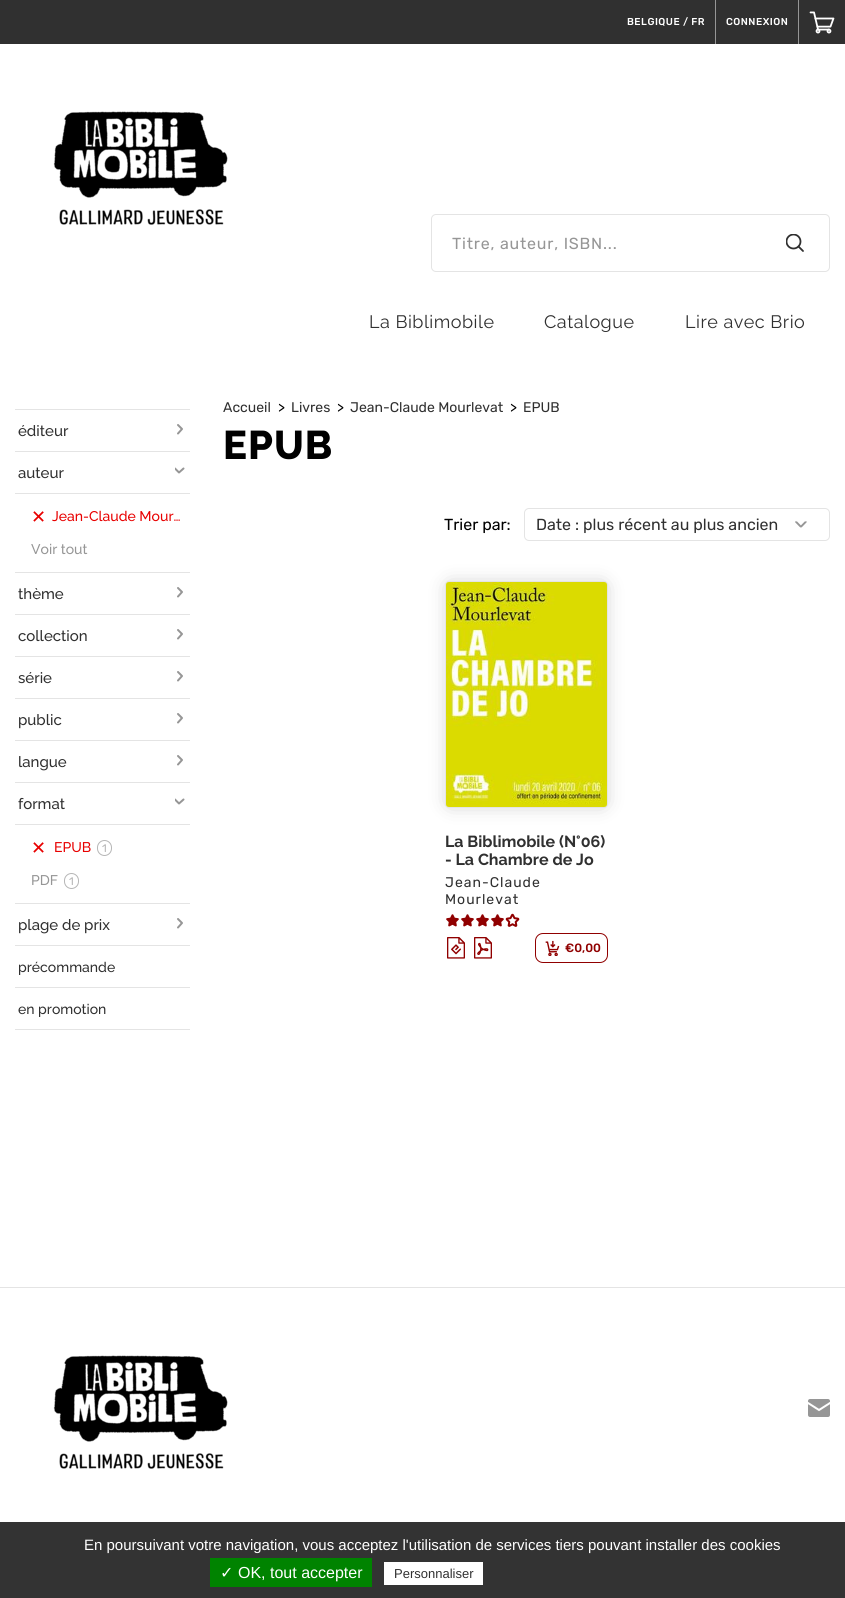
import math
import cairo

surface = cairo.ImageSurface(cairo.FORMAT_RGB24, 845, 1598)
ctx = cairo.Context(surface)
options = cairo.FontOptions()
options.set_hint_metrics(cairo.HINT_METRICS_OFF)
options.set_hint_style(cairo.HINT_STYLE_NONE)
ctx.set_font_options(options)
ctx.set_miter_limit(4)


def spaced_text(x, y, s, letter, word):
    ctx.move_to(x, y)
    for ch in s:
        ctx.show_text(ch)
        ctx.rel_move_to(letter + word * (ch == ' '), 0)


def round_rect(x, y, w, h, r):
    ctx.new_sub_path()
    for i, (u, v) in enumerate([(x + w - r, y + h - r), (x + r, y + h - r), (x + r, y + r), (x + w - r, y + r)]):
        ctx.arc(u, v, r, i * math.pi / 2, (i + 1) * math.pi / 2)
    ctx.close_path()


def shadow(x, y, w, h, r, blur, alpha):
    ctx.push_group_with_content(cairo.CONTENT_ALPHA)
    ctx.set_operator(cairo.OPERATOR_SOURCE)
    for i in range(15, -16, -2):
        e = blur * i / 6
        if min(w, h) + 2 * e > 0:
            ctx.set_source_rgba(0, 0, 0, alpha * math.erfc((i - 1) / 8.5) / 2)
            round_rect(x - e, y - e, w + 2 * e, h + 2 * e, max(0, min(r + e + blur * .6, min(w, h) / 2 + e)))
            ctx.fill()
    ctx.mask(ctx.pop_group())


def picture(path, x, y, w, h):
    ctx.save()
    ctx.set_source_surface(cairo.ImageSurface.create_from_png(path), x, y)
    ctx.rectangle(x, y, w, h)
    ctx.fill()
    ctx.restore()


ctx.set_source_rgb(1, 1, 1)
ctx.paint()
ctx.set_source_rgb(0.188, 0.188, 0.188)
ctx.rectangle(0, 0, 845, 44)
ctx.fill()
ctx.select_font_face("Rubik Medium")
ctx.set_font_size(10)
ctx.set_source_rgb(1, 1, 1)
spaced_text(627, 25, "BELGIQUE / FR", 0.5, 0)
ctx.set_source_rgb(0.588, 0.588, 0.588)
ctx.rectangle(715, 0, 1, 44)
ctx.fill()
ctx.set_source_rgb(1, 1, 1)
spaced_text(726, 25, "CONNEXION", 0.5, 0)
ctx.set_source_rgb(0.588, 0.588, 0.588)
ctx.rectangle(798, 0, 1, 44)
ctx.fill()
picture("img1.png", 809, 11, 26, 23)
picture("img2.png", 53, 111, 175, 114)
round_rect(431.5, 214.5, 398, 57, 4.5)
ctx.set_source_rgb(0.894, 0.894, 0.894)
ctx.set_line_width(1)
ctx.stroke()
ctx.select_font_face("Rubik")
ctx.set_font_size(16)
ctx.set_source_rgb(0.588, 0.588, 0.588)
spaced_text(452, 249, "Titre, auteur, ISBN...", 0.8, 0)
ctx.save()
ctx.rectangle(786, 234, 18, 18)
ctx.clip()
ctx.arc(793.5, 241.5, 7, 0, 2 * math.pi)
ctx.set_source_rgb(0.188, 0.188, 0.188)
ctx.set_line_width(1.8)
ctx.stroke()
ctx.restore()
ctx.new_path()
ctx.move_to(803, 251)
ctx.line_to(798.5, 246.5)
ctx.set_source_rgb(0.188, 0.188, 0.188)
ctx.set_line_width(1.8)
ctx.set_line_cap(cairo.LINE_CAP_ROUND)
ctx.set_line_join(cairo.LINE_JOIN_ROUND)
ctx.stroke()
ctx.select_font_face("Raleway")
ctx.set_font_size(18)
spaced_text(369, 328, "La Biblimobile", 0.5, 0)
spaced_text(544, 328, "Catalogue", 0.5, 0)
spaced_text(685, 328, "Lire avec Brio", 0.5, 0)
ctx.set_source_rgb(0.894, 0.894, 0.894)
ctx.rectangle(15, 409, 175, 1)
ctx.fill()
ctx.rectangle(15, 451, 175, 1)
ctx.fill()
ctx.select_font_face("Raleway Medium")
ctx.set_font_size(15)
ctx.set_source_rgb(0.188, 0.188, 0.188)
ctx.move_to(18, 436)
ctx.show_text("éditeur")
ctx.new_path()
ctx.move_to(178, 425)
ctx.line_to(182, 429)
ctx.line_to(178, 433.5)
ctx.set_source_rgb(0.588, 0.588, 0.588)
ctx.set_line_width(2)
ctx.stroke()
ctx.set_source_rgb(0.894, 0.894, 0.894)
ctx.rectangle(15, 493, 175, 1)
ctx.fill()
ctx.set_source_rgb(0.188, 0.188, 0.188)
ctx.move_to(18, 478)
ctx.show_text("auteur")
ctx.save()
ctx.new_path()
ctx.move_to(185, 465.5)
ctx.line_to(185, 475.5)
ctx.line_to(175, 475.5)
ctx.line_to(175, 465.5)
ctx.close_path()
ctx.clip()
ctx.new_path()
ctx.move_to(183.5, 468.5)
ctx.line_to(179, 472.5)
ctx.line_to(175, 468.5)
ctx.set_source_rgb(0.588, 0.588, 0.588)
ctx.stroke()
ctx.restore()
ctx.set_source_rgb(0.894, 0.894, 0.894)
ctx.rectangle(15, 572, 175, 1)
ctx.fill()
ctx.select_font_face("DejaVu Sans")
ctx.set_font_size(18)
ctx.set_source_rgb(0.91, 0, 0)
ctx.move_to(31, 523)
ctx.show_text("✕")
ctx.select_font_face("Raleway Medium")
ctx.set_font_size(14)
ctx.move_to(52, 521)
ctx.show_text("Jean-Claude Mour…")
ctx.set_source_rgb(0.588, 0.588, 0.588)
ctx.move_to(31, 554)
ctx.show_text("Voir tout")
ctx.set_source_rgb(0.894, 0.894, 0.894)
ctx.rectangle(15, 614, 175, 1)
ctx.fill()
ctx.set_font_size(15)
ctx.set_source_rgb(0.188, 0.188, 0.188)
ctx.move_to(18, 599)
ctx.show_text("thème")
ctx.new_path()
ctx.move_to(178, 588)
ctx.line_to(182, 592)
ctx.line_to(178, 596.5)
ctx.move_to(178, 630)
ctx.line_to(182, 634)
ctx.line_to(178, 638.5)
ctx.set_source_rgb(0.588, 0.588, 0.588)
ctx.stroke()
ctx.set_source_rgb(0.894, 0.894, 0.894)
ctx.rectangle(15, 656, 175, 1)
ctx.fill()
ctx.set_source_rgb(0.188, 0.188, 0.188)
ctx.move_to(18, 641)
ctx.show_text("collection")
ctx.set_source_rgb(0.894, 0.894, 0.894)
ctx.rectangle(15, 698, 175, 1)
ctx.fill()
ctx.set_source_rgb(0.188, 0.188, 0.188)
ctx.move_to(18, 683)
ctx.show_text("série")
ctx.new_path()
ctx.move_to(178, 672)
ctx.line_to(182, 676)
ctx.line_to(178, 680.5)
ctx.move_to(178, 714)
ctx.line_to(182, 718)
ctx.line_to(178, 722.5)
ctx.set_source_rgb(0.588, 0.588, 0.588)
ctx.stroke()
ctx.set_source_rgb(0.894, 0.894, 0.894)
ctx.rectangle(15, 740, 175, 1)
ctx.fill()
ctx.set_source_rgb(0.188, 0.188, 0.188)
ctx.move_to(18, 725)
ctx.show_text("public")
ctx.set_source_rgb(0.894, 0.894, 0.894)
ctx.rectangle(15, 782, 175, 1)
ctx.fill()
ctx.set_source_rgb(0.188, 0.188, 0.188)
ctx.move_to(18, 767)
ctx.show_text("langue")
ctx.new_path()
ctx.move_to(178, 756)
ctx.line_to(182, 760)
ctx.line_to(178, 764.5)
ctx.set_source_rgb(0.588, 0.588, 0.588)
ctx.stroke()
ctx.set_source_rgb(0.894, 0.894, 0.894)
ctx.rectangle(15, 824, 175, 1)
ctx.fill()
ctx.set_source_rgb(0.188, 0.188, 0.188)
ctx.move_to(18, 809)
ctx.show_text("format")
ctx.save()
ctx.new_path()
ctx.move_to(185, 796.5)
ctx.line_to(185, 806.5)
ctx.line_to(175, 806.5)
ctx.line_to(175, 796.5)
ctx.close_path()
ctx.clip()
ctx.new_path()
ctx.move_to(183.5, 799.5)
ctx.line_to(179, 803.5)
ctx.line_to(175, 799.5)
ctx.set_source_rgb(0.588, 0.588, 0.588)
ctx.stroke()
ctx.restore()
ctx.set_source_rgb(0.894, 0.894, 0.894)
ctx.rectangle(15, 903, 175, 1)
ctx.fill()
ctx.select_font_face("DejaVu Sans")
ctx.set_font_size(18)
ctx.set_source_rgb(0.91, 0, 0)
ctx.move_to(31, 854)
ctx.show_text("✕")
ctx.select_font_face("Raleway Medium")
ctx.set_font_size(14)
ctx.move_to(54, 852)
ctx.show_text("EPUB")
round_rect(97.5, 840.5, 14, 15, 7)
ctx.set_source_rgb(0.714, 0.714, 0.714)
ctx.set_line_width(1)
ctx.set_line_cap(cairo.LINE_CAP_BUTT)
ctx.set_line_join(cairo.LINE_JOIN_MITER)
ctx.stroke()
ctx.select_font_face("Rubik")
ctx.set_font_size(11)
ctx.move_to(102, 852)
ctx.show_text("1")
ctx.select_font_face("Raleway Medium")
ctx.set_font_size(14)
ctx.set_source_rgb(0.588, 0.588, 0.588)
ctx.move_to(31, 885)
ctx.show_text("PDF")
round_rect(64.5, 873.5, 14, 15, 7)
ctx.set_source_rgb(0.714, 0.714, 0.714)
ctx.stroke()
ctx.select_font_face("Rubik")
ctx.set_font_size(11)
ctx.move_to(69, 885)
ctx.show_text("1")
ctx.set_source_rgb(0.894, 0.894, 0.894)
ctx.rectangle(15, 945, 175, 1)
ctx.fill()
ctx.select_font_face("Raleway Medium")
ctx.set_font_size(15)
ctx.set_source_rgb(0.188, 0.188, 0.188)
ctx.move_to(18, 930)
ctx.show_text("plage de prix")
ctx.new_path()
ctx.move_to(178, 919)
ctx.line_to(182, 923)
ctx.line_to(178, 927.5)
ctx.set_source_rgb(0.588, 0.588, 0.588)
ctx.set_line_width(2)
ctx.set_line_cap(cairo.LINE_CAP_ROUND)
ctx.set_line_join(cairo.LINE_JOIN_ROUND)
ctx.stroke()
ctx.set_source_rgb(0.894, 0.894, 0.894)
ctx.rectangle(15, 987, 175, 1)
ctx.fill()
ctx.set_font_size(14)
ctx.set_source_rgb(0.188, 0.188, 0.188)
ctx.move_to(18, 972)
ctx.show_text("précommande")
ctx.set_source_rgb(0.894, 0.894, 0.894)
ctx.rectangle(15, 1029, 175, 1)
ctx.fill()
ctx.set_source_rgb(0.188, 0.188, 0.188)
ctx.move_to(18, 1014)
ctx.show_text("en promotion")
ctx.select_font_face("Rubik")
ctx.move_to(223, 412)
ctx.show_text("Accueil")
ctx.set_source_rgb(0, 0, 0)
ctx.move_to(278, 412)
ctx.show_text(">")
ctx.set_source_rgb(0.188, 0.188, 0.188)
ctx.move_to(291, 412)
ctx.show_text("Livres")
ctx.set_source_rgb(0, 0, 0)
ctx.move_to(337, 412)
ctx.show_text(">")
ctx.set_source_rgb(0.188, 0.188, 0.188)
ctx.move_to(350, 412)
ctx.show_text("Jean-Claude Mourlevat")
ctx.set_source_rgb(0, 0, 0)
ctx.move_to(510, 412)
ctx.show_text(">")
ctx.set_source_rgb(0.188, 0.188, 0.188)
ctx.move_to(523, 412)
ctx.show_text("EPUB")
ctx.select_font_face("Raleway ExtraBold")
ctx.set_font_size(40)
ctx.set_source_rgb(0, 0, 0)
spaced_text(223, 459, "EPUB", 1, 0)
ctx.select_font_face("Rubik")
ctx.set_font_size(16)
ctx.move_to(444, 530)
ctx.show_text("Trier par:")
round_rect(524.5, 508.5, 305, 32, 4.5)
ctx.set_source_rgb(0.894, 0.894, 0.894)
ctx.set_line_width(1)
ctx.set_line_cap(cairo.LINE_CAP_BUTT)
ctx.set_line_join(cairo.LINE_JOIN_MITER)
ctx.stroke()
ctx.set_source_rgb(0.188, 0.188, 0.188)
ctx.move_to(536, 530)
ctx.show_text("Date : plus récent au plus ancien")
ctx.set_font_size(24)
ctx.set_source_rgb(0.588, 0.588, 0.588)
ctx.save()
ctx.translate(793, 520)
ctx.rotate(90 * math.pi / 180)
ctx.move_to(0, 0)
ctx.show_text("›")
ctx.restore()
ctx.set_source_rgb(0, 0, 0)
shadow(450, 586, 153, 217, 0, 10, 0.25)
round_rect(445.5, 581.5, 162, 226, 3.5)
ctx.set_source_rgb(0.894, 0.894, 0.894)
ctx.stroke()
picture("img3.png", 446, 582, 161, 225)
ctx.select_font_face("Raleway", cairo.FONT_SLANT_NORMAL, cairo.FONT_WEIGHT_BOLD)
ctx.set_font_size(16)
ctx.set_source_rgb(0.188, 0.188, 0.188)
ctx.move_to(445, 847)
ctx.show_text("La Biblimobile (N°06)")
ctx.move_to(445, 865)
ctx.show_text("- La Chambre de Jo")
ctx.select_font_face("Rubik")
ctx.set_font_size(14)
spaced_text(445, 887, "Jean-Claude", 1, 0)
spaced_text(445, 904, "Mourlevat", 1, 0)
picture("img4.png", 446, 914, 13, 13)
picture("img4.png", 461, 914, 13, 13)
picture("img4.png", 476, 914, 13, 13)
picture("img4.png", 491, 914, 13, 13)
picture("img5.png", 505, 913, 15, 14)
picture("img6.png", 447, 937, 18, 22)
picture("img7.png", 474, 937, 18, 22)
round_rect(535.5, 933.5, 72, 29, 7.5)
ctx.set_source_rgb(0.565, 0, 0)
ctx.stroke()
picture("img8.png", 545, 940, 15, 16)
ctx.select_font_face("Rubik Medium")
ctx.set_font_size(12)
ctx.move_to(565, 952)
ctx.show_text("€0,00")
ctx.set_source_rgb(0.894, 0.894, 0.894)
ctx.rectangle(0, 1287, 845, 1)
ctx.fill()
picture("img2.png", 53, 1355, 175, 114)
picture("img9.png", 808, 1399, 22, 18)
ctx.set_source_rgb(0.2, 0.2, 0.2)
ctx.rectangle(0, 1522, 845, 76)
ctx.fill()
ctx.select_font_face("Liberation Sans")
ctx.set_font_size(15)
ctx.set_source_rgb(1, 1, 1)
ctx.move_to(84, 1550)
ctx.show_text("En poursuivant votre navigation, vous acceptez l'utilisation de services tiers pouvant installer des cookies")
ctx.set_source_rgb(0, 0.514, 0)
ctx.rectangle(210, 1558, 162, 29)
ctx.fill()
ctx.select_font_face("DejaVu Sans")
ctx.set_font_size(16)
ctx.set_source_rgb(1, 1, 1)
ctx.move_to(220, 1578)
ctx.show_text("✓")
ctx.select_font_face("Liberation Sans")
ctx.move_to(238, 1578)
ctx.show_text("OK, tout accepter")
ctx.rectangle(384, 1562, 99, 23)
ctx.fill()
ctx.set_font_size(13)
ctx.set_source_rgb(0.188, 0.188, 0.188)
ctx.move_to(394, 1578)
ctx.show_text("Personnaliser")
surface.write_to_png("page.png")
